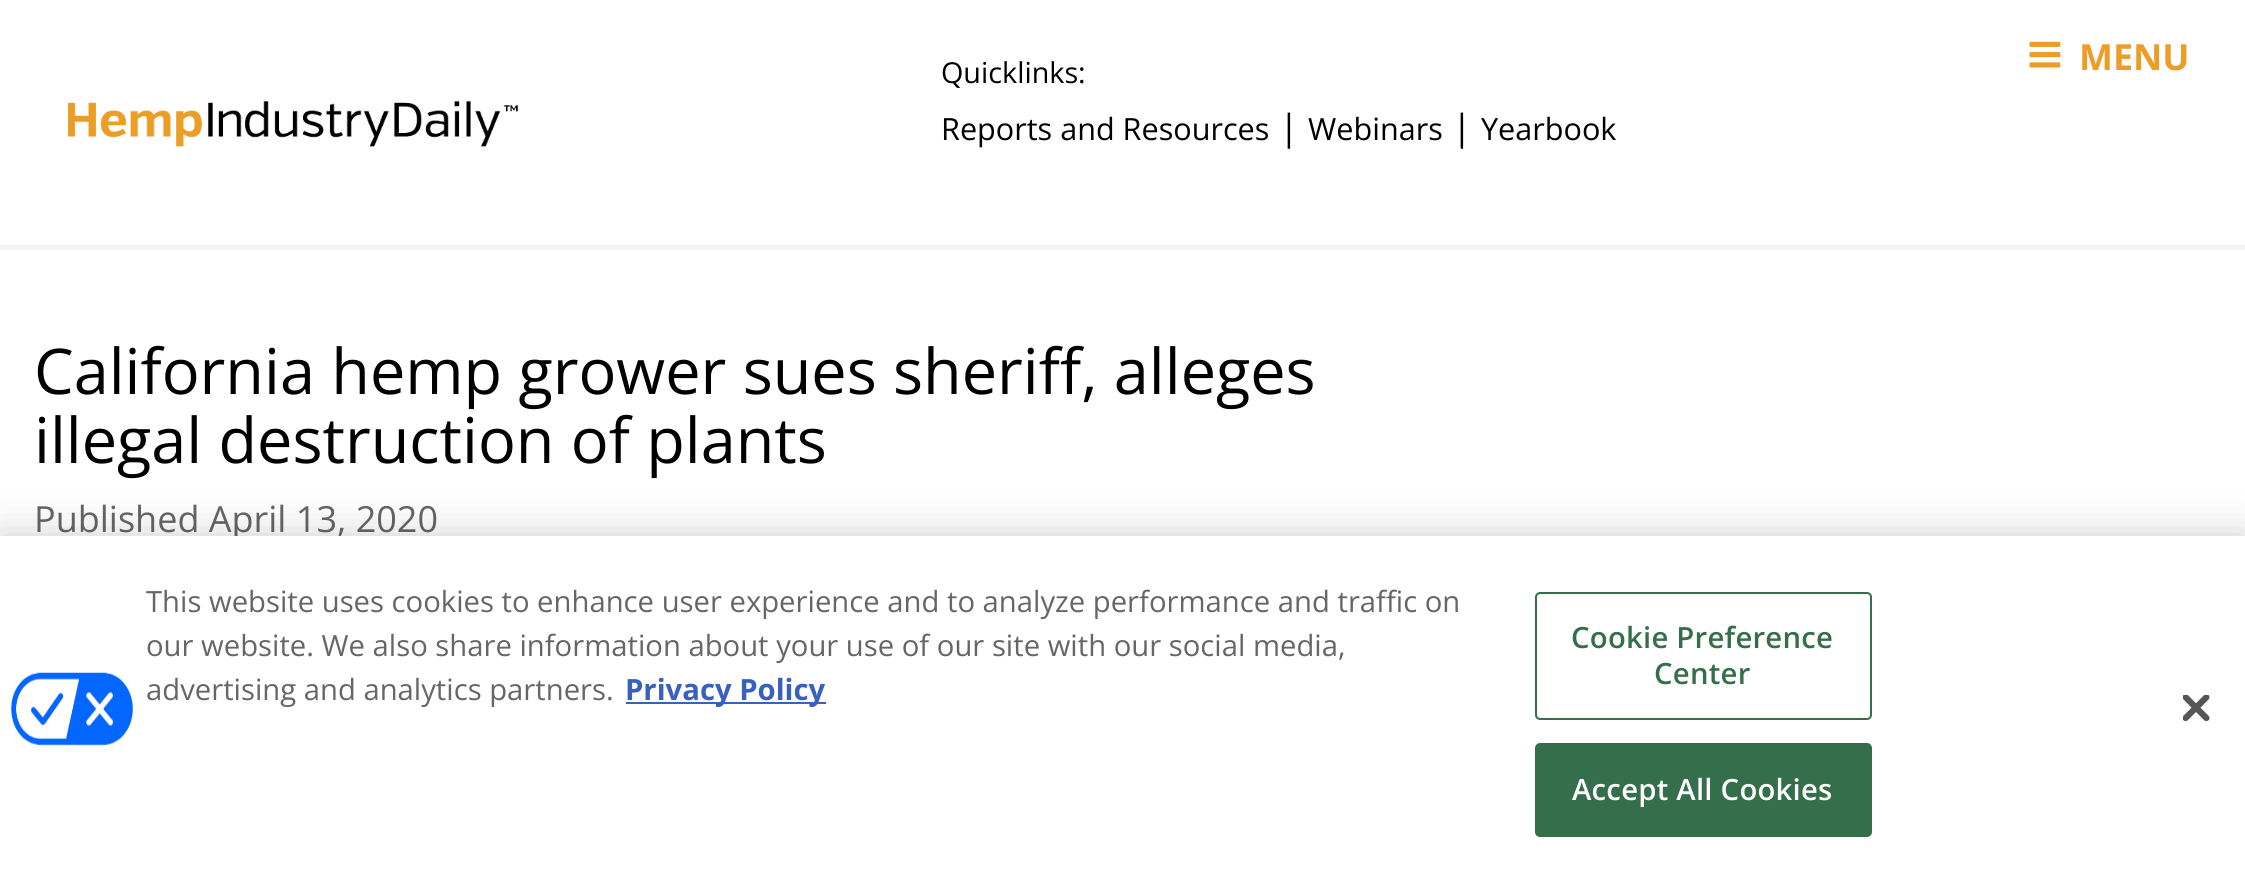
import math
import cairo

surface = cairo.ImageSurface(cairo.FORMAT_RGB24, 2245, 880)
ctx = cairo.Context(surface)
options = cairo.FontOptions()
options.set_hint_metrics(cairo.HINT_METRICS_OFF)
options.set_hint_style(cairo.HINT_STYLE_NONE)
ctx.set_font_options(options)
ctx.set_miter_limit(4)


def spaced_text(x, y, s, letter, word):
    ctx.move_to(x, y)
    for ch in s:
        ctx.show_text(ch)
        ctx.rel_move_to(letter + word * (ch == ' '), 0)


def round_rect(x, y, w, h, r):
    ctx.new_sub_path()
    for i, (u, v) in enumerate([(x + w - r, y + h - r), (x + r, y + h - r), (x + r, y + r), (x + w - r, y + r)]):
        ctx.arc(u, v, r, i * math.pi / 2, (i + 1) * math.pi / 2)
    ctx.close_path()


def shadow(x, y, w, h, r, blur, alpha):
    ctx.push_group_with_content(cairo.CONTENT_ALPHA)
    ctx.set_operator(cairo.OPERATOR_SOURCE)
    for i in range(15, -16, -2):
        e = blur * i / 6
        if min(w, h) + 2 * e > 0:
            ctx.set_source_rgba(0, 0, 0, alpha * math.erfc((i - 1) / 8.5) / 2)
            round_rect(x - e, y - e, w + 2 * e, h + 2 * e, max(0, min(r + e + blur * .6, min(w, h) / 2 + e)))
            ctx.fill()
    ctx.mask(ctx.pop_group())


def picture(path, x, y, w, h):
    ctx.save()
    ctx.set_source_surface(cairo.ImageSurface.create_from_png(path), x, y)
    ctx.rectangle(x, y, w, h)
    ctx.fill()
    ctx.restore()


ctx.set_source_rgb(1, 1, 1)
ctx.paint()
ctx.save()
ctx.rectangle(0, 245, 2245, 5)
ctx.clip()
ctx.set_source_rgb(0, 0, 0)
shadow(-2, 0, 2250, 250, 0, 1, 0.05)
ctx.restore()
picture("img1.png", 2029, 41, 32, 27)
ctx.select_font_face("Open Sans", cairo.FONT_SLANT_NORMAL, cairo.FONT_WEIGHT_BOLD)
ctx.set_font_size(36)
ctx.set_source_rgb(0.922, 0.616, 0.153)
ctx.move_to(2079, 70)
ctx.show_text("MENU")
picture("img2.png", 68, 100, 450, 47)
ctx.select_font_face("Open Sans")
ctx.set_font_size(28.75)
ctx.set_source_rgb(0, 0, 0)
ctx.move_to(941, 83)
ctx.show_text("Quicklinks:")
ctx.set_font_size(30.6)
ctx.move_to(941, 140)
ctx.show_text("Reports and Resources")
ctx.set_font_size(36)
ctx.move_to(1279, 140)
ctx.show_text("|")
ctx.set_font_size(30.6)
ctx.move_to(1308, 140)
ctx.show_text("Webinars")
ctx.set_font_size(36)
ctx.move_to(1452, 140)
ctx.show_text("|")
ctx.set_font_size(30.6)
ctx.move_to(1481, 140)
ctx.show_text("Yearbook")
ctx.set_font_size(63)
ctx.move_to(34, 394)
ctx.show_text("California hemp grower sues sheriff, alleges")
ctx.move_to(34, 463)
ctx.show_text("illegal destruction of plants")
ctx.set_font_size(36)
ctx.set_source_rgb(0.4, 0.4, 0.4)
ctx.move_to(34, 532)
ctx.show_text("Published April 13, 2020")
ctx.set_source_rgb(0, 0, 0)
shadow(0, 536, 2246, 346, 0, 20, 0.2)
ctx.set_source_rgb(1, 1, 1)
ctx.rectangle(0, 536, 2245, 344)
ctx.fill()
picture("img3.png", 11, 672, 122, 74)
ctx.set_font_size(29.25)
ctx.set_source_rgb(0.4, 0.4, 0.4)
ctx.move_to(146, 612)
ctx.show_text("This website uses cookies to enhance user experience and to analyze performance and traffic on")
ctx.move_to(146, 656)
ctx.show_text("our website. We also share information about your use of our site with our social media,")
ctx.move_to(146, 700)
ctx.show_text("advertising and analytics partners.")
ctx.set_source_rgb(0.22, 0.376, 0.745)
ctx.rectangle(626, 702, 200, 2)
ctx.fill()
ctx.select_font_face("Open Sans", cairo.FONT_SLANT_NORMAL, cairo.FONT_WEIGHT_BOLD)
ctx.move_to(625, 700)
ctx.show_text("Privacy Policy")
round_rect(1536, 593, 335, 126, 4)
ctx.set_source_rgb(0.204, 0.431, 0.29)
ctx.stroke()
ctx.select_font_face("Open Sans SemiBold")
spaced_text(1571, 648, "Cookie Preference", 0.25, 0)
spaced_text(1654, 684, "Center", 0.25, 0)
round_rect(1536, 744, 335, 92, 4)
ctx.fill_preserve()
ctx.stroke()
ctx.set_source_rgb(1, 1, 1)
spaced_text(1572, 800, "Accept All Cookies", 0.25, 0)
picture("img4.png", 2183, 695, 27, 27)
surface.write_to_png("page.png")
